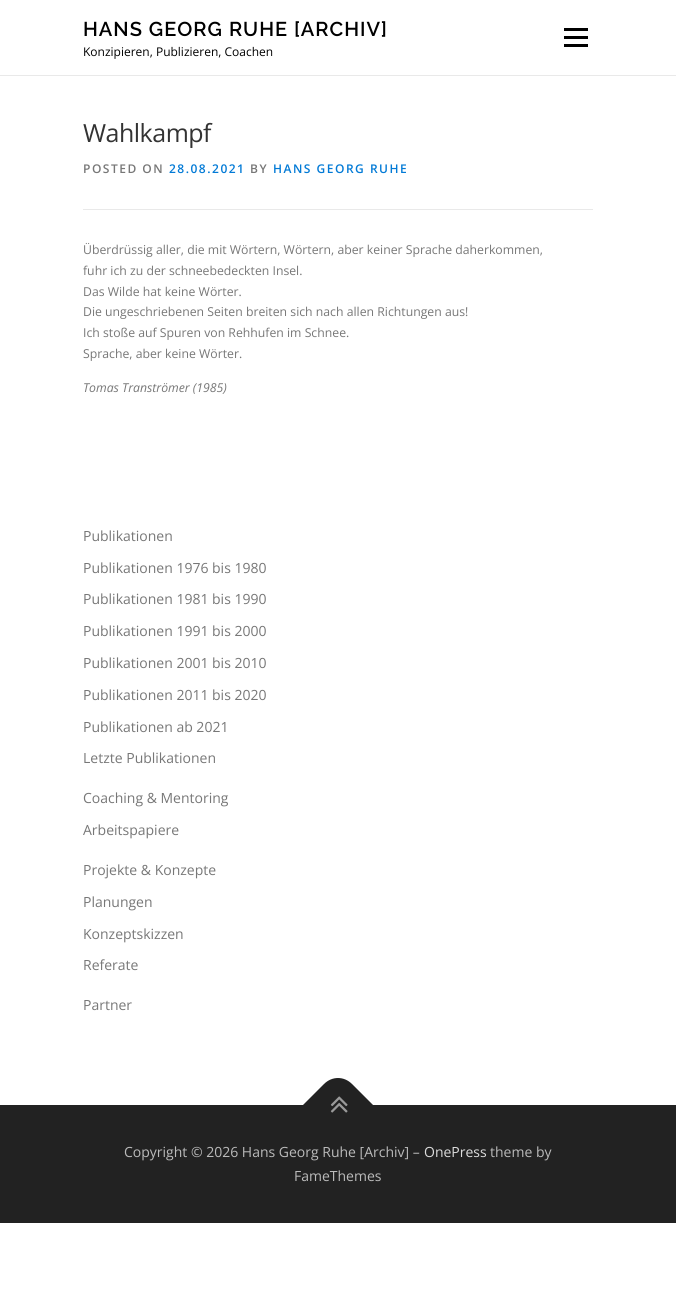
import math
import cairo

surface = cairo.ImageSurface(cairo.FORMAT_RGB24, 676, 1298)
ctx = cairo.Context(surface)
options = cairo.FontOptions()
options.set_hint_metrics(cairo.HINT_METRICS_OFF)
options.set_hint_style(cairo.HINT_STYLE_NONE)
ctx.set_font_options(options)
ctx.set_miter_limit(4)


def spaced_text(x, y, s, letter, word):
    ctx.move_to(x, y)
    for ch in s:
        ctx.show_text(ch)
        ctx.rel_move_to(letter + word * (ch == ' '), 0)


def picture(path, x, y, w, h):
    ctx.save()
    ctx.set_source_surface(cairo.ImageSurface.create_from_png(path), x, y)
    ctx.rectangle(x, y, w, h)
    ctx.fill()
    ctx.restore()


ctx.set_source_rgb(1, 1, 1)
ctx.paint()
ctx.select_font_face("Raleway SemiBold")
ctx.set_font_size(20)
ctx.set_source_rgb(0, 0, 0)
spaced_text(83, 36, "HANS GEORG RUHE [ARCHIV]", 1, 0)
ctx.select_font_face("Open Sans")
ctx.set_font_size(12)
ctx.move_to(83, 56)
ctx.show_text("Konzipieren, Publizieren, Coachen")
ctx.rectangle(564, 36, 24, 3)
ctx.fill()
ctx.rectangle(564, 28, 24, 3)
ctx.fill()
ctx.rectangle(564, 44, 24, 3)
ctx.fill()
ctx.set_source_rgb(0.914, 0.914, 0.914)
ctx.rectangle(0, 75, 676, 1)
ctx.fill()
ctx.set_font_size(25)
ctx.set_source_rgb(0.2, 0.2, 0.2)
spaced_text(83, 142, "Wahlkampf", -0.5, 0)
ctx.set_source_rgb(0.914, 0.914, 0.914)
ctx.rectangle(83, 209, 510, 1)
ctx.fill()
ctx.select_font_face("Open Sans SemiBold")
ctx.set_font_size(12)
ctx.set_source_rgb(0.467, 0.467, 0.467)
spaced_text(83, 173, "POSTED ON", 1.5, 0)
ctx.set_source_rgb(0.008, 0.478, 0.839)
spaced_text(169, 173, "28.08.2021", 1.5, 0)
ctx.set_source_rgb(0.467, 0.467, 0.467)
spaced_text(250, 173, "BY", 1.5, 0)
ctx.set_source_rgb(0.008, 0.478, 0.839)
spaced_text(273, 173, "HANS GEORG RUHE", 1.5, 0)
ctx.select_font_face("Open Sans")
ctx.set_font_size(12.25)
ctx.set_source_rgb(0.467, 0.467, 0.467)
ctx.move_to(83, 254)
ctx.show_text("Überdrüssig aller, die mit Wörtern, Wörtern, aber keiner Sprache daherkommen,")
ctx.move_to(83, 275)
ctx.show_text("fuhr ich zu der schneebedeckten Insel.")
ctx.move_to(83, 296)
ctx.show_text("Das Wilde hat keine Wörter.")
ctx.move_to(83, 316)
ctx.show_text("Die ungeschriebenen Seiten breiten sich nach allen Richtungen aus!")
ctx.move_to(83, 337)
ctx.show_text("Ich stoße auf Spuren von Rehhufen im Schnee.")
ctx.move_to(83, 358)
ctx.show_text("Sprache, aber keine Wörter.")
ctx.select_font_face("Open Sans", cairo.FONT_SLANT_ITALIC)
ctx.move_to(83, 392)
ctx.show_text("Tomas Tranströmer (1985)")
ctx.select_font_face("Open Sans")
ctx.set_font_size(14)
ctx.move_to(83, 541)
ctx.show_text("Publikationen")
ctx.move_to(83, 573)
ctx.show_text("Publikationen 1976 bis 1980")
ctx.move_to(83, 604)
ctx.show_text("Publikationen 1981 bis 1990")
ctx.move_to(83, 636)
ctx.show_text("Publikationen 1991 bis 2000")
ctx.move_to(83, 668)
ctx.show_text("Publikationen 2001 bis 2010")
ctx.move_to(83, 700)
ctx.show_text("Publikationen 2011 bis 2020")
ctx.move_to(83, 732)
ctx.show_text("Publikationen ab 2021")
ctx.move_to(83, 763)
ctx.show_text("Letzte Publikationen")
ctx.move_to(83, 803)
ctx.show_text("Coaching & Mentoring")
ctx.move_to(83, 835)
ctx.show_text("Arbeitspapiere")
ctx.move_to(83, 875)
ctx.show_text("Projekte & Konzepte")
ctx.move_to(83, 907)
ctx.show_text("Planungen")
ctx.move_to(83, 939)
ctx.show_text("Konzeptskizzen")
ctx.move_to(83, 970)
ctx.show_text("Referate")
ctx.move_to(83, 1010)
ctx.show_text("Partner")
ctx.set_source_rgb(0.133, 0.133, 0.133)
ctx.rectangle(0, 1105, 676, 118)
ctx.fill()
ctx.new_path()
ctx.move_to(303, 1105)
ctx.line_to(324, 1084)
ctx.curve_to(332, 1076, 344, 1076, 352, 1084)
ctx.line_to(373, 1105)
ctx.line_to(338, 1140)
ctx.close_path()
ctx.fill()
picture("img1.png", 330, 1096, 18, 17)
ctx.set_source_rgb(0.733, 0.733, 0.733)
ctx.move_to(124, 1157)
ctx.show_text("Copyright © 2026 Hans Georg Ruhe [Archiv] –")
ctx.set_source_rgb(0.867, 0.867, 0.867)
ctx.move_to(424, 1157)
ctx.show_text("OnePress")
ctx.set_source_rgb(0.733, 0.733, 0.733)
ctx.move_to(490, 1157)
ctx.show_text("theme by")
ctx.move_to(294, 1181)
ctx.show_text("FameThemes")
surface.write_to_png("page.png")
